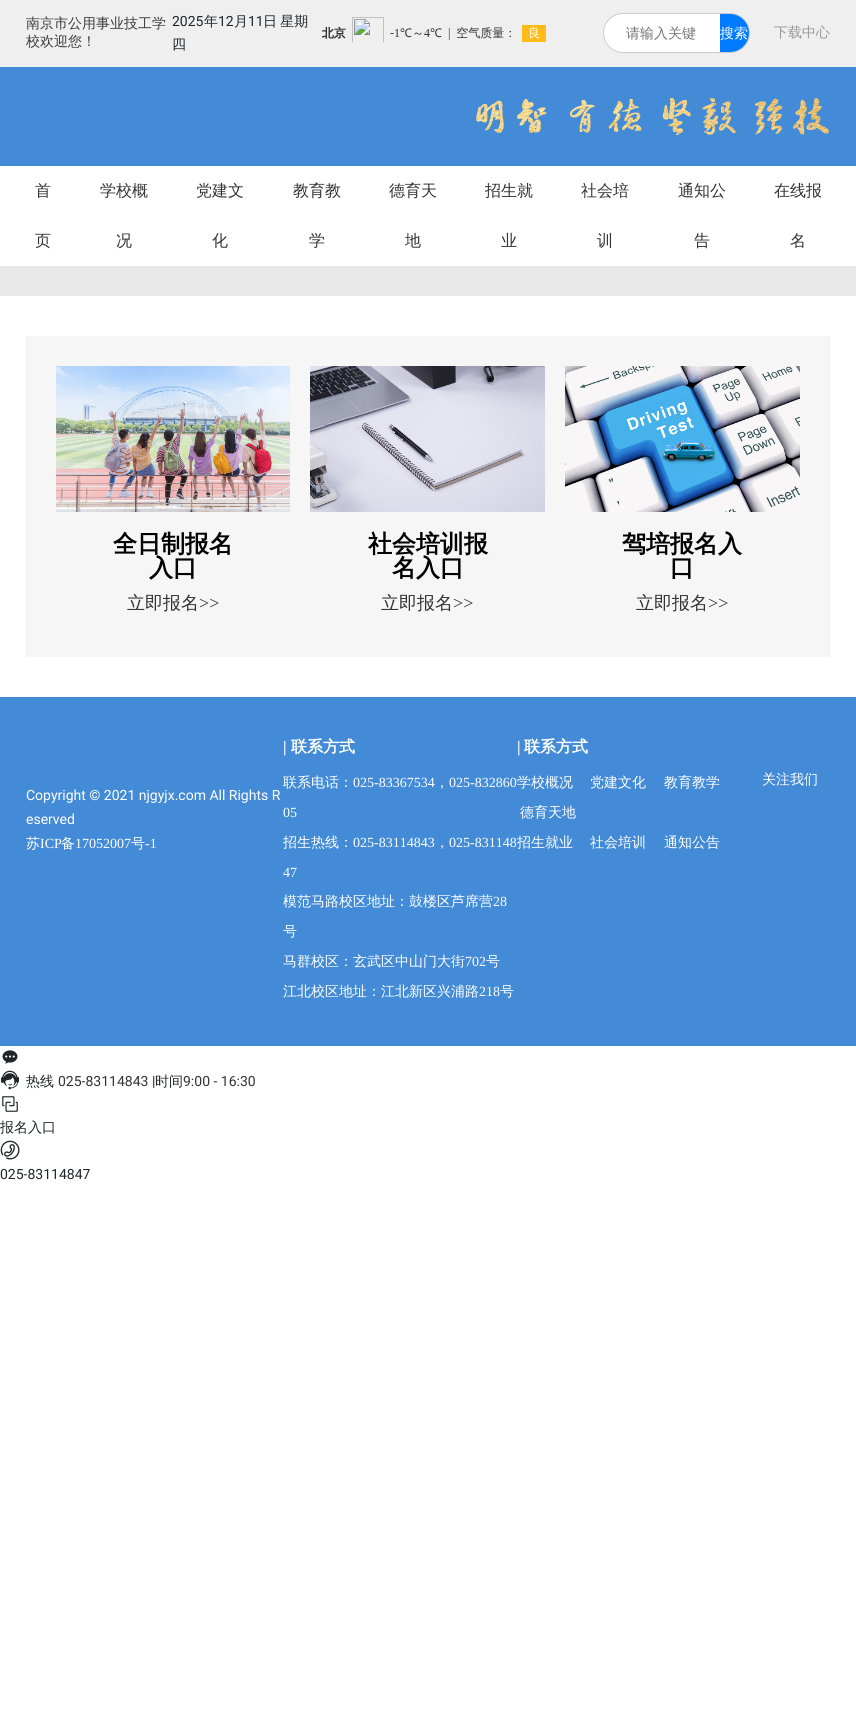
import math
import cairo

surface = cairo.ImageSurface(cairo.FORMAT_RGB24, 856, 1723)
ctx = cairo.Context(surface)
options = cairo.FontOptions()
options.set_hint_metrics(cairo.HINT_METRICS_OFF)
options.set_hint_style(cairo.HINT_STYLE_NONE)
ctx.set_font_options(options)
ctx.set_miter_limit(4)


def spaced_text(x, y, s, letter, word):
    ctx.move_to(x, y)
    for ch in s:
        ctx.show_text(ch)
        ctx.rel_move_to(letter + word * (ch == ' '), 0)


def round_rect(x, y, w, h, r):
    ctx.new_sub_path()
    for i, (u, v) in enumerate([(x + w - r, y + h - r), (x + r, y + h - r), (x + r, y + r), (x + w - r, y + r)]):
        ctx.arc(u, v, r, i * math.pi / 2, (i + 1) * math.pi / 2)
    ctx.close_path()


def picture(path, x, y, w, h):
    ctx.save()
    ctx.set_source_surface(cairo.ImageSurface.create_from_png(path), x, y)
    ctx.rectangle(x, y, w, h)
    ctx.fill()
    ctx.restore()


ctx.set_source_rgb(1, 1, 1)
ctx.paint()
ctx.set_source_rgb(0.937, 0.937, 0.937)
ctx.rectangle(0, 0, 856, 67)
ctx.fill()
ctx.select_font_face("WenQuanYi Zen Hei Medium")
ctx.set_font_size(14)
ctx.set_source_rgb(0.235, 0.235, 0.235)
ctx.move_to(26, 28)
ctx.show_text("南京市公用事业技工学")
ctx.move_to(26, 46)
ctx.show_text("校欢迎您！")
ctx.select_font_face("Roboto")
ctx.set_source_rgb(0.129, 0.145, 0.161)
ctx.move_to(172, 26)
ctx.show_text("2025")
ctx.select_font_face("WenQuanYi Zen Hei Medium")
ctx.move_to(204, 26)
ctx.show_text("年")
ctx.select_font_face("Roboto")
ctx.move_to(218, 26)
ctx.show_text("12")
ctx.select_font_face("WenQuanYi Zen Hei Medium")
ctx.move_to(234, 26)
ctx.show_text("月")
ctx.select_font_face("Roboto")
ctx.move_to(248, 26)
ctx.show_text("11")
ctx.select_font_face("WenQuanYi Zen Hei Medium")
spaced_text(263, 26, "日 星期", 0, -1)
ctx.move_to(172, 49)
ctx.show_text("四")
picture("img1.png", 322, 17, 224, 25)
ctx.set_source_rgb(1, 1, 1)
round_rect(603.5, 13.5, 146, 39, 19.5)
ctx.fill_preserve()
ctx.set_source_rgb(0.8, 0.8, 0.8)
ctx.set_line_width(1)
ctx.stroke()
ctx.set_source_rgb(0.459, 0.459, 0.459)
ctx.move_to(626, 38)
ctx.show_text("请输入关键")
ctx.set_source_rgb(0, 0.482, 1)
ctx.new_path()
ctx.move_to(720, 14)
ctx.line_to(730, 14)
ctx.curve_to(740.5, 14, 749, 22.5, 749, 33)
ctx.curve_to(749, 43.5, 740.5, 52, 730, 52)
ctx.line_to(720, 52)
ctx.close_path()
ctx.fill()
ctx.set_source_rgb(1, 1, 1)
ctx.move_to(720, 38)
ctx.show_text("搜索")
ctx.set_source_rgb(0.6, 0.6, 0.6)
ctx.move_to(774, 37)
ctx.show_text("下载中心")
ctx.set_source_rgb(0.263, 0.545, 0.843)
ctx.rectangle(0, 67, 856, 99)
ctx.fill()
picture("img2.png", 476, 98, 353, 37)
ctx.set_font_size(16)
ctx.set_source_rgb(0.2, 0.2, 0.2)
ctx.move_to(35, 196)
ctx.show_text("首")
ctx.move_to(35, 246)
ctx.show_text("页")
ctx.move_to(100, 196)
ctx.show_text("学校概")
ctx.move_to(116, 246)
ctx.show_text("况")
ctx.move_to(196, 196)
ctx.show_text("党建文")
ctx.move_to(212, 246)
ctx.show_text("化")
ctx.move_to(293, 196)
ctx.show_text("教育教")
ctx.move_to(309, 246)
ctx.show_text("学")
ctx.move_to(389, 196)
ctx.show_text("德育天")
ctx.move_to(405, 246)
ctx.show_text("地")
ctx.move_to(485, 196)
ctx.show_text("招生就")
ctx.move_to(501, 246)
ctx.show_text("业")
ctx.move_to(581, 196)
ctx.show_text("社会培")
ctx.move_to(597, 246)
ctx.show_text("训")
ctx.move_to(678, 196)
ctx.show_text("通知公")
ctx.move_to(694, 246)
ctx.show_text("告")
ctx.move_to(774, 196)
ctx.show_text("在线报")
ctx.move_to(790, 246)
ctx.show_text("名")
ctx.set_source_rgb(0.91, 0.91, 0.91)
ctx.rectangle(0, 266, 856, 30)
ctx.fill()
ctx.set_source_rgb(0.961, 0.961, 0.961)
ctx.rectangle(26, 336, 804, 321)
ctx.fill()
picture("img3.png", 56, 366, 234, 146)
ctx.select_font_face("WenQuanYi Zen Hei", cairo.FONT_SLANT_NORMAL, cairo.FONT_WEIGHT_BOLD)
ctx.set_font_size(24)
ctx.set_source_rgb(0, 0, 0)
ctx.move_to(113, 552)
ctx.show_text("全日制报名")
ctx.move_to(149, 576)
ctx.show_text("入口")
ctx.select_font_face("WenQuanYi Zen Hei Medium")
ctx.set_font_size(18)
ctx.set_source_rgb(0.2, 0.2, 0.2)
ctx.move_to(127, 609)
ctx.show_text("立即报名")
ctx.select_font_face("Liberation Serif")
ctx.move_to(199, 609)
ctx.show_text(">>")
picture("img4.png", 310, 366, 235, 146)
ctx.select_font_face("WenQuanYi Zen Hei", cairo.FONT_SLANT_NORMAL, cairo.FONT_WEIGHT_BOLD)
ctx.set_font_size(24)
ctx.set_source_rgb(0, 0, 0)
ctx.move_to(368, 552)
ctx.show_text("社会培训报")
ctx.move_to(392, 576)
ctx.show_text("名入口")
ctx.select_font_face("WenQuanYi Zen Hei Medium")
ctx.set_font_size(18)
ctx.set_source_rgb(0.2, 0.2, 0.2)
ctx.move_to(381, 609)
ctx.show_text("立即报名")
ctx.select_font_face("Liberation Serif")
ctx.move_to(453, 609)
ctx.show_text(">>")
picture("img5.png", 565, 366, 235, 146)
ctx.select_font_face("WenQuanYi Zen Hei", cairo.FONT_SLANT_NORMAL, cairo.FONT_WEIGHT_BOLD)
ctx.set_font_size(24)
ctx.set_source_rgb(0, 0, 0)
ctx.move_to(622, 552)
ctx.show_text("驾培报名入")
ctx.move_to(670, 576)
ctx.show_text("口")
ctx.select_font_face("WenQuanYi Zen Hei Medium")
ctx.set_font_size(18)
ctx.set_source_rgb(0.2, 0.2, 0.2)
ctx.move_to(636, 609)
ctx.show_text("立即报名")
ctx.select_font_face("Liberation Serif")
ctx.move_to(708, 609)
ctx.show_text(">>")
ctx.set_source_rgb(0.263, 0.545, 0.843)
ctx.rectangle(0, 697, 856, 349)
ctx.fill()
ctx.select_font_face("Liberation Serif", cairo.FONT_SLANT_NORMAL, cairo.FONT_WEIGHT_BOLD)
ctx.set_font_size(16)
ctx.set_source_rgb(1, 1, 1)
ctx.move_to(283, 752)
ctx.show_text("|")
ctx.select_font_face("WenQuanYi Zen Hei", cairo.FONT_SLANT_NORMAL, cairo.FONT_WEIGHT_BOLD)
ctx.move_to(291, 752)
ctx.show_text("联系方式")
ctx.select_font_face("WenQuanYi Zen Hei Medium")
ctx.set_font_size(14)
ctx.move_to(283, 787)
ctx.show_text("联系电话：")
ctx.select_font_face("Liberation Serif")
ctx.move_to(353, 787)
ctx.show_text("025-83367534")
ctx.select_font_face("WenQuanYi Zen Hei Medium")
ctx.move_to(435, 787)
ctx.show_text("，")
ctx.select_font_face("Liberation Serif")
ctx.move_to(449, 787)
ctx.show_text("025-832860")
ctx.move_to(283, 817)
ctx.show_text("05")
ctx.select_font_face("WenQuanYi Zen Hei Medium")
ctx.move_to(283, 847)
ctx.show_text("招生热线：")
ctx.select_font_face("Liberation Serif")
ctx.move_to(353, 847)
ctx.show_text("025-83114843")
ctx.select_font_face("WenQuanYi Zen Hei Medium")
ctx.move_to(435, 847)
ctx.show_text("，")
ctx.select_font_face("Liberation Serif")
ctx.move_to(449, 847)
ctx.show_text("025-831148")
ctx.move_to(283, 877)
ctx.show_text("47")
ctx.select_font_face("WenQuanYi Zen Hei Medium")
ctx.move_to(283, 906)
ctx.show_text("模范马路校区地址：鼓楼区芦席营")
ctx.select_font_face("Liberation Serif")
ctx.move_to(493, 906)
ctx.show_text("28")
ctx.select_font_face("WenQuanYi Zen Hei Medium")
ctx.move_to(283, 936)
ctx.show_text("号")
ctx.move_to(283, 966)
ctx.show_text("马群校区：玄武区中山门大街")
ctx.select_font_face("Liberation Serif")
ctx.move_to(465, 966)
ctx.show_text("702")
ctx.select_font_face("WenQuanYi Zen Hei Medium")
ctx.move_to(486, 966)
ctx.show_text("号")
ctx.move_to(283, 996)
ctx.show_text("江北校区地址：江北新区兴浦路")
ctx.select_font_face("Liberation Serif")
ctx.move_to(479, 996)
ctx.show_text("218")
ctx.select_font_face("WenQuanYi Zen Hei Medium")
ctx.move_to(500, 996)
ctx.show_text("号")
ctx.select_font_face("Liberation Serif", cairo.FONT_SLANT_NORMAL, cairo.FONT_WEIGHT_BOLD)
ctx.set_font_size(16)
ctx.move_to(517, 752)
ctx.show_text("|")
ctx.select_font_face("WenQuanYi Zen Hei", cairo.FONT_SLANT_NORMAL, cairo.FONT_WEIGHT_BOLD)
ctx.move_to(524, 752)
ctx.show_text("联系方式")
ctx.select_font_face("WenQuanYi Zen Hei Medium")
ctx.set_font_size(14)
ctx.move_to(517, 787)
ctx.show_text("学校概况")
ctx.move_to(590, 787)
ctx.show_text("党建文化")
ctx.move_to(664, 787)
ctx.show_text("教育教学")
ctx.move_to(520, 817)
ctx.show_text("德育天地")
ctx.move_to(517, 847)
ctx.show_text("招生就业")
ctx.move_to(590, 847)
ctx.show_text("社会培训")
ctx.move_to(664, 847)
ctx.show_text("通知公告")
ctx.move_to(762, 784)
ctx.show_text("关注我们")
ctx.select_font_face("Roboto")
ctx.move_to(26, 800)
ctx.show_text("Copyright © 2021 njgyjx.com All Rights R")
ctx.move_to(26, 824)
ctx.show_text("eserved")
ctx.select_font_face("WenQuanYi Zen Hei Medium")
ctx.move_to(26, 848)
ctx.show_text("苏")
ctx.select_font_face("Liberation Serif")
ctx.move_to(40, 848)
ctx.show_text("ICP")
ctx.select_font_face("WenQuanYi Zen Hei Medium")
ctx.move_to(61, 848)
ctx.show_text("备")
ctx.select_font_face("Liberation Serif")
ctx.move_to(75, 848)
ctx.show_text("17052007")
ctx.select_font_face("WenQuanYi Zen Hei Medium")
ctx.move_to(131, 848)
ctx.show_text("号")
ctx.select_font_face("Liberation Serif")
ctx.move_to(145, 848)
ctx.show_text("-1")
picture("img6.png", 2, 1050, 16, 14)
picture("img7.png", 0, 1070, 19, 20)
ctx.select_font_face("WenQuanYi Zen Hei Medium")
ctx.set_source_rgb(0.129, 0.145, 0.161)
ctx.move_to(26, 1086)
ctx.show_text("热线")
ctx.select_font_face("Roboto")
ctx.set_source_rgb(0.2, 0.2, 0.2)
ctx.move_to(58, 1086)
ctx.show_text("025-83114843")
ctx.set_source_rgb(0.129, 0.145, 0.161)
ctx.move_to(152, 1086)
ctx.show_text("|")
ctx.select_font_face("WenQuanYi Zen Hei Medium")
ctx.move_to(155, 1086)
ctx.show_text("时间")
ctx.select_font_face("Roboto")
ctx.set_source_rgb(0.2, 0.2, 0.2)
ctx.move_to(183, 1086)
ctx.show_text("9:00 - 16:30")
picture("img8.png", 2, 1096, 16, 16)
ctx.select_font_face("WenQuanYi Zen Hei Medium")
ctx.set_source_rgb(0.129, 0.145, 0.161)
ctx.move_to(0, 1132)
ctx.show_text("报名入口")
picture("img9.png", 0, 1140, 20, 20)
ctx.select_font_face("Roboto")
ctx.move_to(0, 1179)
ctx.show_text("025-83114847")
surface.write_to_png("page.png")
